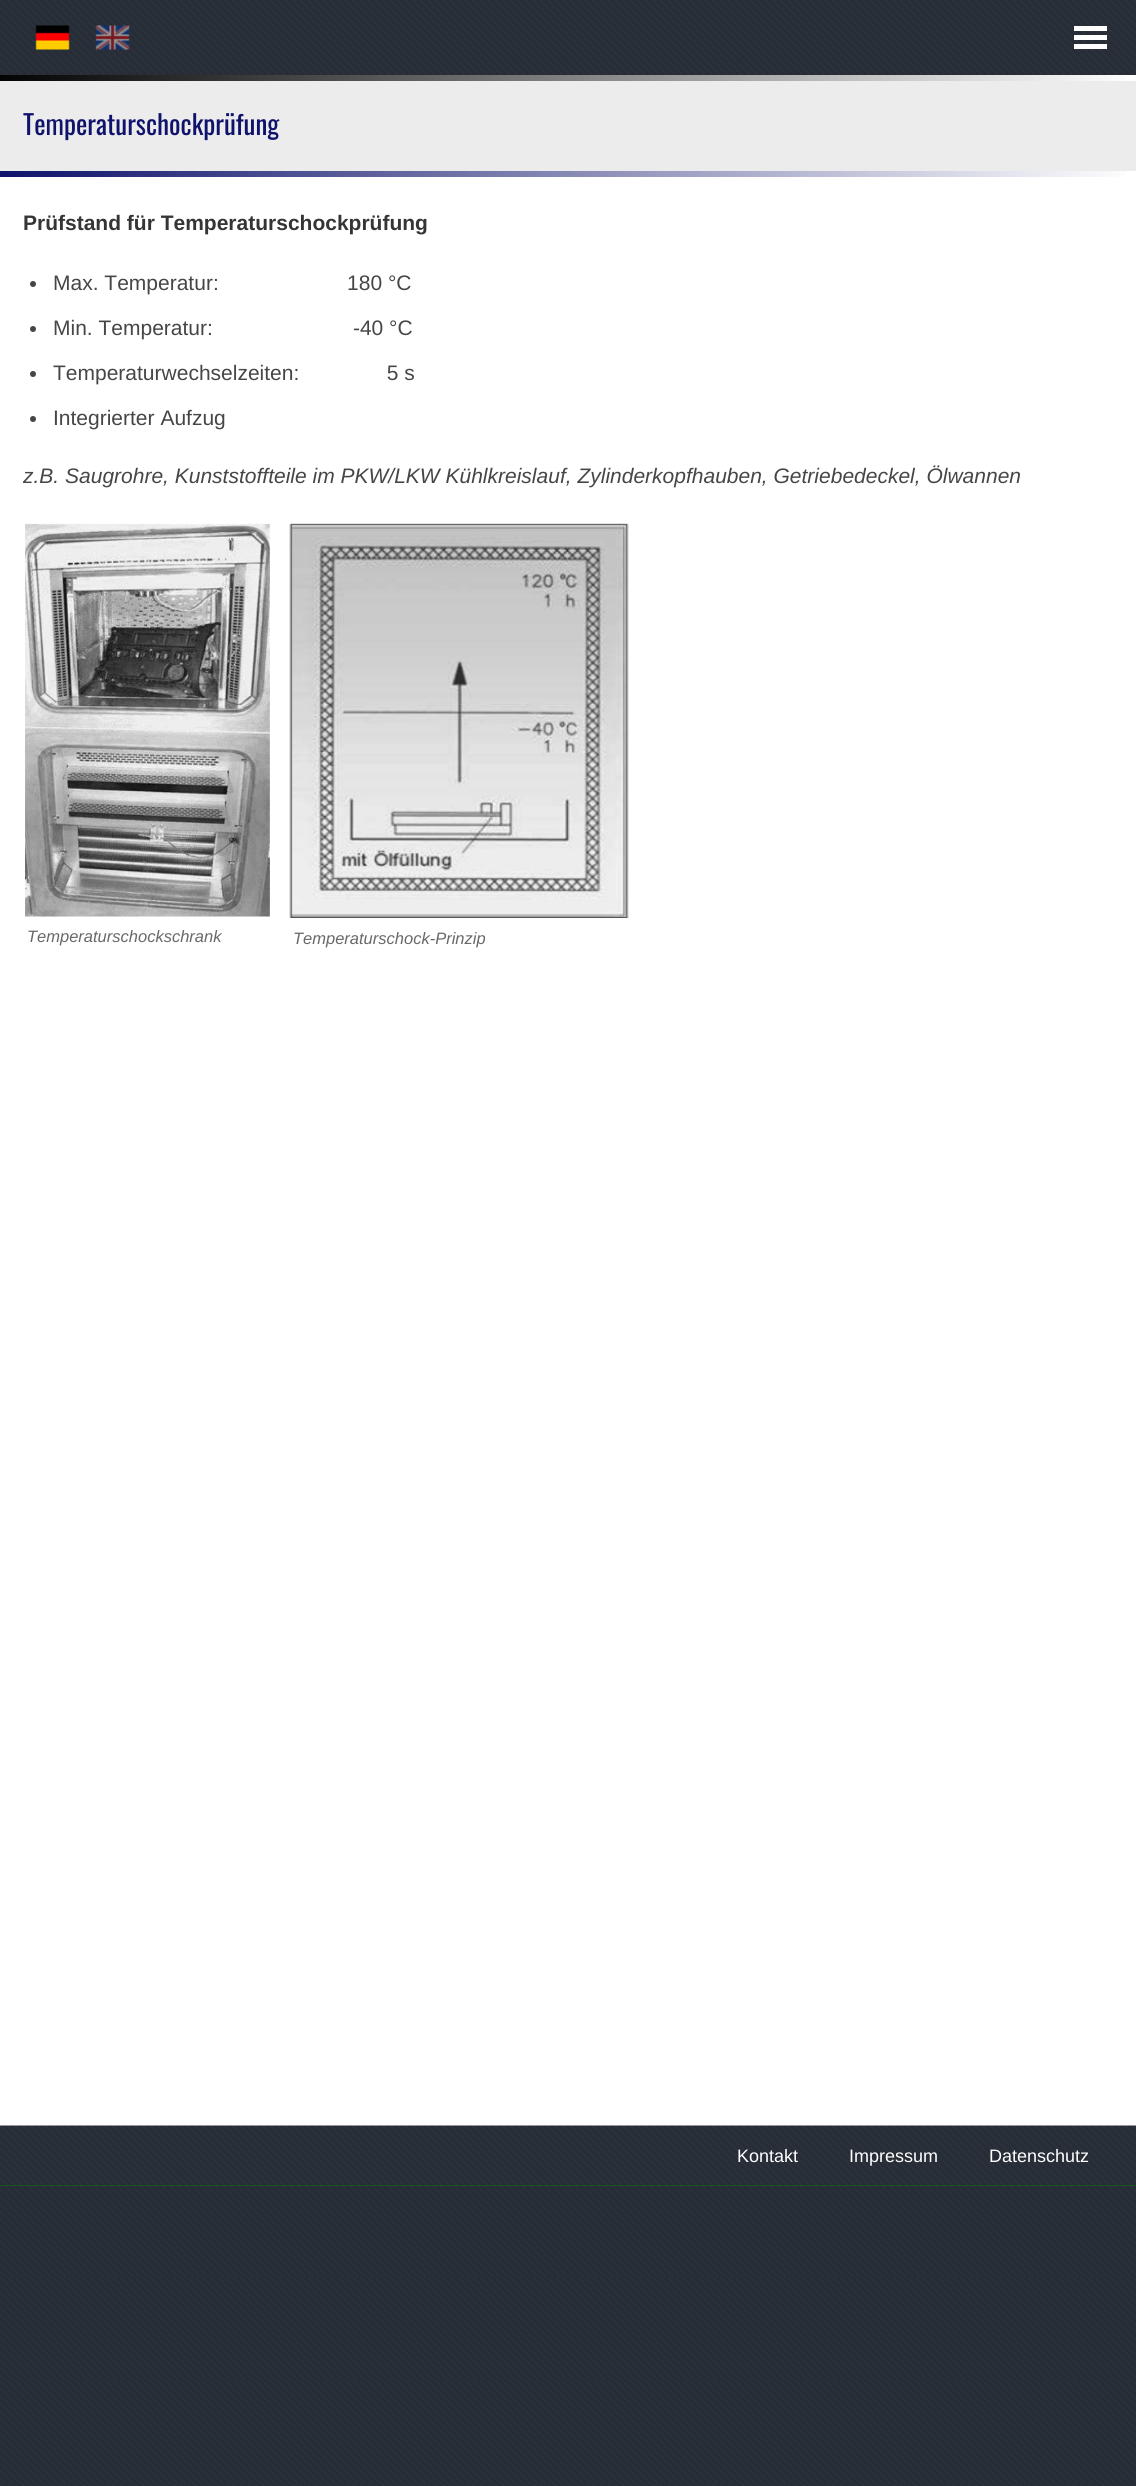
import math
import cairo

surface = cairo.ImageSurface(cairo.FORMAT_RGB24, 1136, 2486)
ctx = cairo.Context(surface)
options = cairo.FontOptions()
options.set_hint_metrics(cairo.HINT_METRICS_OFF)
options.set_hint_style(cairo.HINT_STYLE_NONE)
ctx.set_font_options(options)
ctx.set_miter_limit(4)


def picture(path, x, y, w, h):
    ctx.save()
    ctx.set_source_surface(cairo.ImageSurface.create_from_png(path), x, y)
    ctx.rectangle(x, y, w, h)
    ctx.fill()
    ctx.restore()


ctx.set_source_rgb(1, 1, 1)
ctx.paint()
picture("img1.png", 0, 2186, 1136, 300)
picture("img2.png", 0, 0, 1136, 75)
picture("img3.png", 35, 25, 35, 25)
picture("img4.png", 95, 25, 35, 25)
ctx.set_source_rgb(1, 1, 1)
ctx.rectangle(1074, 26, 33, 5)
ctx.fill()
ctx.rectangle(1074, 35, 33, 5)
ctx.fill()
ctx.rectangle(1074, 44, 33, 5)
ctx.fill()
gradient = cairo.LinearGradient(0, 78, 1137, 78)
gradient.add_color_stop_rgba(0, 0.012, 0.012, 0.012, 1)
gradient.add_color_stop_rgba(1, 1, 1, 1, 1)
ctx.set_source(gradient)
ctx.rectangle(0, 75, 1126, 6)
ctx.fill()
ctx.set_source_rgb(0.925, 0.922, 0.922)
ctx.rectangle(0, 81, 1136, 90)
ctx.fill()
ctx.select_font_face("Oswald")
ctx.set_font_size(27)
ctx.set_source_rgb(0.063, 0.075, 0.42)
ctx.move_to(23, 135)
ctx.show_text("Temperaturschockprüfung")
gradient = cairo.LinearGradient(0, 174, 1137, 174)
gradient.add_color_stop_rgba(0, 0.059, 0.075, 0.42, 1)
gradient.add_color_stop_rgba(1, 1, 1, 1, 1)
ctx.set_source(gradient)
ctx.rectangle(0, 171, 1125, 6)
ctx.fill()
ctx.select_font_face("Liberation Sans", cairo.FONT_SLANT_NORMAL, cairo.FONT_WEIGHT_BOLD)
ctx.set_font_size(21)
ctx.set_source_rgb(0.208, 0.208, 0.208)
ctx.move_to(23, 230)
ctx.show_text("Prüfstand für Temperaturschockprüfung")
ctx.set_source_rgb(0.275, 0.275, 0.275)
ctx.new_path()
ctx.arc(33, 284, 3, 0, 2 * math.pi)
ctx.fill()
ctx.select_font_face("Liberation Sans")
ctx.move_to(53, 290)
ctx.show_text("Max. Temperatur:                      180 °C")
ctx.new_path()
ctx.arc(33, 329, 3, 0, 2 * math.pi)
ctx.fill()
ctx.move_to(53, 335)
ctx.show_text("Min. Temperatur:                        -40 °C")
ctx.new_path()
ctx.arc(33, 374, 3, 0, 2 * math.pi)
ctx.fill()
ctx.move_to(53, 380)
ctx.show_text("Temperaturwechselzeiten:               5 s")
ctx.new_path()
ctx.arc(33, 419, 3, 0, 2 * math.pi)
ctx.fill()
ctx.move_to(53, 425)
ctx.show_text("Integrierter Aufzug")
ctx.select_font_face("Liberation Sans", cairo.FONT_SLANT_ITALIC)
ctx.move_to(23, 483)
ctx.show_text("z.B. Saugrohre, Kunststoffteile im PKW/LKW Kühlkreislauf, Zylinderkopfhauben, Getriebedeckel, Ölwannen")
picture("img5.png", 25, 523, 245, 394)
ctx.set_font_size(16.5)
ctx.set_source_rgb(0.408, 0.408, 0.408)
ctx.move_to(27, 942)
ctx.show_text("Temperaturschockschrank")
picture("img6.png", 289, 523, 340, 395)
ctx.move_to(293, 944)
ctx.show_text("Temperaturschock-Prinzip")
ctx.set_source_rgb(0.012, 0.506, 0.012)
ctx.rectangle(0, 2185, 1136, 1)
ctx.fill()
picture("img7.png", 0, 2125, 1136, 61)
ctx.select_font_face("Liberation Sans")
ctx.set_font_size(18)
ctx.set_source_rgb(1, 1, 1)
ctx.move_to(737, 2162)
ctx.show_text("Kontakt")
ctx.move_to(849, 2162)
ctx.show_text("Impressum")
ctx.move_to(989, 2162)
ctx.show_text("Datenschutz")
surface.write_to_png("page.png")
